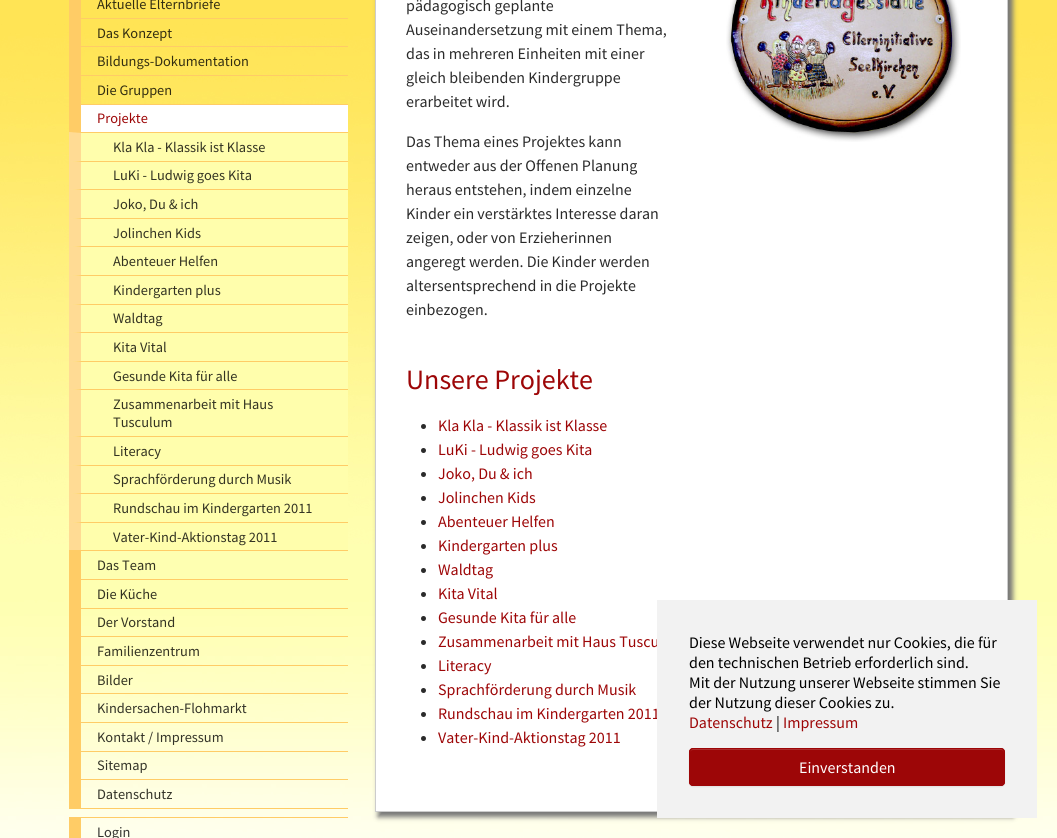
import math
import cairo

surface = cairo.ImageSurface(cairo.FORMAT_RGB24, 1057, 838)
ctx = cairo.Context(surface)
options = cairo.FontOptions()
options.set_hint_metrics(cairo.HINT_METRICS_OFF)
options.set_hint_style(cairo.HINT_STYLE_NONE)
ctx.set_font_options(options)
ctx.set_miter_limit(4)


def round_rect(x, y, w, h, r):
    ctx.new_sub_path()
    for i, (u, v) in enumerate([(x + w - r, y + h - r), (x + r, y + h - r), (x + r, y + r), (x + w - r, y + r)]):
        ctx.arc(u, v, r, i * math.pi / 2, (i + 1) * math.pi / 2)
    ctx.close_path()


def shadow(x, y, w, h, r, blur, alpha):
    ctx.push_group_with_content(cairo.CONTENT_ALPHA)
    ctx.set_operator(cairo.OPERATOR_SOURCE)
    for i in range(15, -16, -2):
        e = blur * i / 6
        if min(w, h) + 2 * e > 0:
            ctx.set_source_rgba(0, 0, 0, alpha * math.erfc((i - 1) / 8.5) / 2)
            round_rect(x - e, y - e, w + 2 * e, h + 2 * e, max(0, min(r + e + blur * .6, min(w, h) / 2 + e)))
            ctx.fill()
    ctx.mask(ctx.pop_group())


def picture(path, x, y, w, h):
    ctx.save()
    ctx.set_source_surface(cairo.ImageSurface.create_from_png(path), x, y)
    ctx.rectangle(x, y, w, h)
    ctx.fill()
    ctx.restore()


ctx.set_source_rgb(1, 1, 1)
ctx.paint()
picture("img1.png", 0, 0, 1057, 838)
ctx.set_source_rgb(1, 0.8, 0.4)
ctx.rectangle(81, 18, 267, 1)
ctx.fill()
ctx.rectangle(69, 0, 12, 104)
ctx.fill()
ctx.select_font_face("Source Sans Pro")
ctx.set_font_size(14.4)
ctx.set_source_rgb(0.2, 0.18, 0.067)
ctx.move_to(97, 9)
ctx.show_text("Aktuelle Elternbriefe")
ctx.set_source_rgb(1, 0.8, 0.4)
ctx.rectangle(81, 46, 267, 1)
ctx.fill()
ctx.set_source_rgb(0.2, 0.18, 0.067)
ctx.move_to(97, 38)
ctx.show_text("Das Konzept")
ctx.set_source_rgb(1, 0.8, 0.4)
ctx.rectangle(81, 75, 267, 1)
ctx.fill()
ctx.set_source_rgb(0.2, 0.18, 0.067)
ctx.move_to(97, 66)
ctx.show_text("Bildungs-Dokumentation")
ctx.move_to(97, 95)
ctx.show_text("Die Gruppen")
ctx.set_source_rgb(1, 1, 1)
ctx.rectangle(81, 105, 267, 27)
ctx.fill()
ctx.set_source_rgb(1, 0.8, 0.4)
ctx.rectangle(81, 104, 267, 1)
ctx.fill()
ctx.rectangle(81, 132, 267, 1)
ctx.fill()
ctx.rectangle(70, 104, 11, 29)
ctx.fill()
ctx.set_source_rgb(0.616, 0.027, 0.031)
ctx.move_to(97, 123)
ctx.show_text("Projekte")
ctx.set_source_rgb(1, 0.996, 0.675)
ctx.rectangle(70, 133, 278, 417)
ctx.fill()
ctx.set_source_rgb(1, 0.8, 0.4)
ctx.rectangle(69, 104, 1, 419)
ctx.fill()
ctx.set_source_rgb(1, 0.859, 0.58)
ctx.new_path()
ctx.move_to(69, 162)
ctx.line_to(69, 132)
ctx.line_to(81, 133)
ctx.line_to(81, 161)
ctx.close_path()
ctx.fill()
ctx.set_source_rgb(0.2, 0.2, 0.133)
ctx.move_to(113, 152)
ctx.show_text("Kla Kla - Klassik ist Klasse")
ctx.set_source_rgb(1, 0.8, 0.4)
ctx.new_path()
ctx.move_to(69, 161)
ctx.line_to(348, 161)
ctx.line_to(348, 162)
ctx.line_to(81, 162)
ctx.close_path()
ctx.fill()
ctx.set_source_rgb(1, 0.859, 0.58)
ctx.new_path()
ctx.move_to(69, 190)
ctx.line_to(69, 161)
ctx.line_to(81, 162)
ctx.line_to(81, 189)
ctx.close_path()
ctx.fill()
ctx.set_source_rgb(0.2, 0.2, 0.133)
ctx.move_to(113, 180)
ctx.show_text("LuKi - Ludwig goes Kita")
ctx.set_source_rgb(1, 0.8, 0.4)
ctx.new_path()
ctx.move_to(69, 189)
ctx.line_to(348, 189)
ctx.line_to(348, 190)
ctx.line_to(81, 190)
ctx.close_path()
ctx.fill()
ctx.set_source_rgb(1, 0.859, 0.58)
ctx.new_path()
ctx.move_to(69, 219)
ctx.line_to(69, 189)
ctx.line_to(81, 190)
ctx.line_to(81, 218)
ctx.close_path()
ctx.fill()
ctx.set_source_rgb(0.2, 0.2, 0.133)
ctx.move_to(113, 209)
ctx.show_text("Joko, Du & ich")
ctx.set_source_rgb(1, 0.8, 0.4)
ctx.new_path()
ctx.move_to(69, 218)
ctx.line_to(348, 218)
ctx.line_to(348, 219)
ctx.line_to(81, 219)
ctx.close_path()
ctx.fill()
ctx.set_source_rgb(1, 0.859, 0.58)
ctx.new_path()
ctx.move_to(69, 247)
ctx.line_to(69, 218)
ctx.line_to(81, 219)
ctx.line_to(81, 246)
ctx.close_path()
ctx.fill()
ctx.set_source_rgb(0.2, 0.2, 0.133)
ctx.move_to(113, 238)
ctx.show_text("Jolinchen Kids")
ctx.set_source_rgb(1, 0.8, 0.4)
ctx.new_path()
ctx.move_to(69, 246)
ctx.line_to(348, 246)
ctx.line_to(348, 247)
ctx.line_to(81, 247)
ctx.close_path()
ctx.fill()
ctx.set_source_rgb(1, 0.859, 0.58)
ctx.new_path()
ctx.move_to(69, 276)
ctx.line_to(69, 246)
ctx.line_to(81, 247)
ctx.line_to(81, 275)
ctx.close_path()
ctx.fill()
ctx.set_source_rgb(0.2, 0.2, 0.133)
ctx.move_to(113, 266)
ctx.show_text("Abenteuer Helfen")
ctx.set_source_rgb(1, 0.8, 0.4)
ctx.new_path()
ctx.move_to(69, 275)
ctx.line_to(348, 275)
ctx.line_to(348, 276)
ctx.line_to(81, 276)
ctx.close_path()
ctx.fill()
ctx.set_source_rgb(1, 0.859, 0.58)
ctx.new_path()
ctx.move_to(69, 305)
ctx.line_to(69, 275)
ctx.line_to(81, 276)
ctx.line_to(81, 304)
ctx.close_path()
ctx.fill()
ctx.set_source_rgb(0.2, 0.2, 0.133)
ctx.move_to(113, 295)
ctx.show_text("Kindergarten plus")
ctx.set_source_rgb(1, 0.8, 0.4)
ctx.new_path()
ctx.move_to(69, 304)
ctx.line_to(348, 304)
ctx.line_to(348, 305)
ctx.line_to(81, 305)
ctx.close_path()
ctx.fill()
ctx.set_source_rgb(1, 0.859, 0.58)
ctx.new_path()
ctx.move_to(69, 333)
ctx.line_to(69, 304)
ctx.line_to(81, 305)
ctx.line_to(81, 332)
ctx.close_path()
ctx.fill()
ctx.set_source_rgb(0.2, 0.2, 0.133)
ctx.move_to(113, 323)
ctx.show_text("Waldtag")
ctx.set_source_rgb(1, 0.8, 0.4)
ctx.new_path()
ctx.move_to(69, 332)
ctx.line_to(348, 332)
ctx.line_to(348, 333)
ctx.line_to(81, 333)
ctx.close_path()
ctx.fill()
ctx.set_source_rgb(1, 0.859, 0.58)
ctx.new_path()
ctx.move_to(69, 362)
ctx.line_to(69, 332)
ctx.line_to(81, 333)
ctx.line_to(81, 361)
ctx.close_path()
ctx.fill()
ctx.set_source_rgb(0.2, 0.2, 0.133)
ctx.move_to(113, 352)
ctx.show_text("Kita Vital")
ctx.set_source_rgb(1, 0.8, 0.4)
ctx.new_path()
ctx.move_to(69, 361)
ctx.line_to(348, 361)
ctx.line_to(348, 362)
ctx.line_to(81, 362)
ctx.close_path()
ctx.fill()
ctx.set_source_rgb(1, 0.859, 0.58)
ctx.new_path()
ctx.move_to(69, 390)
ctx.line_to(69, 361)
ctx.line_to(81, 362)
ctx.line_to(81, 389)
ctx.close_path()
ctx.fill()
ctx.set_source_rgb(0.2, 0.2, 0.133)
ctx.move_to(113, 381)
ctx.show_text("Gesunde Kita für alle")
ctx.set_source_rgb(1, 0.8, 0.4)
ctx.new_path()
ctx.move_to(69, 389)
ctx.line_to(348, 389)
ctx.line_to(348, 390)
ctx.line_to(81, 390)
ctx.close_path()
ctx.fill()
ctx.set_source_rgb(1, 0.859, 0.58)
ctx.new_path()
ctx.move_to(69, 437)
ctx.line_to(69, 389)
ctx.line_to(81, 390)
ctx.line_to(81, 436)
ctx.close_path()
ctx.fill()
ctx.set_source_rgb(0.2, 0.2, 0.133)
ctx.move_to(113, 409)
ctx.show_text("Zusammenarbeit mit Haus")
ctx.move_to(113, 427)
ctx.show_text("Tusculum")
ctx.set_source_rgb(1, 0.8, 0.4)
ctx.new_path()
ctx.move_to(69, 436)
ctx.line_to(348, 436)
ctx.line_to(348, 437)
ctx.line_to(81, 437)
ctx.close_path()
ctx.fill()
ctx.set_source_rgb(1, 0.859, 0.58)
ctx.new_path()
ctx.move_to(69, 466)
ctx.line_to(69, 436)
ctx.line_to(81, 437)
ctx.line_to(81, 465)
ctx.close_path()
ctx.fill()
ctx.set_source_rgb(0.2, 0.2, 0.133)
ctx.move_to(113, 456)
ctx.show_text("Literacy")
ctx.set_source_rgb(1, 0.8, 0.4)
ctx.new_path()
ctx.move_to(69, 465)
ctx.line_to(348, 465)
ctx.line_to(348, 466)
ctx.line_to(81, 466)
ctx.close_path()
ctx.fill()
ctx.set_source_rgb(1, 0.859, 0.58)
ctx.new_path()
ctx.move_to(69, 494)
ctx.line_to(69, 465)
ctx.line_to(81, 466)
ctx.line_to(81, 493)
ctx.close_path()
ctx.fill()
ctx.set_source_rgb(0.2, 0.2, 0.133)
ctx.move_to(113, 484)
ctx.show_text("Sprachförderung durch Musik")
ctx.set_source_rgb(1, 0.8, 0.4)
ctx.new_path()
ctx.move_to(69, 493)
ctx.line_to(348, 493)
ctx.line_to(348, 494)
ctx.line_to(81, 494)
ctx.close_path()
ctx.fill()
ctx.set_source_rgb(1, 0.859, 0.58)
ctx.new_path()
ctx.move_to(69, 523)
ctx.line_to(69, 493)
ctx.line_to(81, 494)
ctx.line_to(81, 522)
ctx.close_path()
ctx.fill()
ctx.set_source_rgb(0.2, 0.2, 0.133)
ctx.move_to(113, 513)
ctx.show_text("Rundschau im Kindergarten 2011")
ctx.set_source_rgb(1, 0.8, 0.4)
ctx.new_path()
ctx.move_to(69, 522)
ctx.line_to(348, 522)
ctx.line_to(348, 523)
ctx.line_to(81, 523)
ctx.close_path()
ctx.fill()
ctx.set_source_rgb(1, 0.859, 0.58)
ctx.new_path()
ctx.move_to(69, 551)
ctx.line_to(69, 522)
ctx.line_to(81, 523)
ctx.line_to(81, 550)
ctx.close_path()
ctx.fill()
ctx.set_source_rgb(0.2, 0.2, 0.133)
ctx.move_to(113, 542)
ctx.show_text("Vater-Kind-Aktionstag 2011")
ctx.set_source_rgb(1, 0.8, 0.4)
ctx.rectangle(81, 550, 267, 1)
ctx.fill()
ctx.rectangle(81, 579, 267, 1)
ctx.fill()
ctx.rectangle(69, 550, 12, 259)
ctx.fill()
ctx.set_source_rgb(0.2, 0.2, 0.133)
ctx.move_to(97, 570)
ctx.show_text("Das Team")
ctx.set_source_rgb(1, 0.8, 0.4)
ctx.rectangle(81, 608, 267, 1)
ctx.fill()
ctx.set_source_rgb(0.2, 0.2, 0.133)
ctx.move_to(97, 599)
ctx.show_text("Die Küche")
ctx.set_source_rgb(1, 0.8, 0.4)
ctx.rectangle(81, 636, 267, 1)
ctx.fill()
ctx.set_source_rgb(0.2, 0.2, 0.133)
ctx.move_to(97, 627)
ctx.show_text("Der Vorstand")
ctx.set_source_rgb(1, 0.8, 0.4)
ctx.rectangle(81, 665, 267, 1)
ctx.fill()
ctx.set_source_rgb(0.2, 0.2, 0.133)
ctx.move_to(97, 656)
ctx.show_text("Familienzentrum")
ctx.set_source_rgb(1, 0.8, 0.4)
ctx.rectangle(81, 693, 267, 1)
ctx.fill()
ctx.set_source_rgb(0.2, 0.2, 0.133)
ctx.move_to(97, 685)
ctx.show_text("Bilder")
ctx.set_source_rgb(1, 0.8, 0.4)
ctx.rectangle(81, 722, 267, 1)
ctx.fill()
ctx.set_source_rgb(0.2, 0.2, 0.157)
ctx.move_to(97, 713)
ctx.show_text("Kindersachen-Flohmarkt")
ctx.set_source_rgb(1, 0.8, 0.4)
ctx.rectangle(81, 751, 267, 1)
ctx.fill()
ctx.set_source_rgb(0.2, 0.2, 0.157)
ctx.move_to(97, 742)
ctx.show_text("Kontakt / Impressum")
ctx.set_source_rgb(1, 0.8, 0.4)
ctx.rectangle(81, 779, 267, 1)
ctx.fill()
ctx.set_source_rgb(0.2, 0.2, 0.157)
ctx.move_to(97, 770)
ctx.show_text("Sitemap")
ctx.set_source_rgb(1, 0.8, 0.4)
ctx.rectangle(81, 808, 267, 1)
ctx.fill()
ctx.set_source_rgb(0.2, 0.2, 0.157)
ctx.move_to(97, 799)
ctx.show_text("Datenschutz")
ctx.set_source_rgb(1, 0.8, 0.4)
ctx.rectangle(81, 817, 267, 1)
ctx.fill()
ctx.rectangle(69, 817, 12, 21)
ctx.fill()
ctx.set_source_rgb(0.2, 0.2, 0.184)
ctx.move_to(97, 837)
ctx.show_text("Login")
ctx.set_source_rgb(0.467, 0.467, 0.467)
shadow(378, -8, 635, 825, 0, 2.5, 1)
ctx.set_source_rgb(1, 1, 1)
ctx.rectangle(375.5, -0.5, 632, 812)
ctx.fill_preserve()
ctx.set_source_rgb(0.8, 0.8, 0.8)
ctx.set_line_width(1)
ctx.stroke()
ctx.set_font_size(16)
ctx.set_source_rgb(0.169, 0.169, 0.169)
ctx.move_to(406, 11)
ctx.show_text("pädagogisch geplante")
ctx.move_to(406, 35)
ctx.show_text("Auseinandersetzung mit einem Thema,")
ctx.move_to(406, 59)
ctx.show_text("das in mehreren Einheiten mit einer")
ctx.move_to(406, 83)
ctx.show_text("gleich bleibenden Kindergruppe")
ctx.move_to(406, 107)
ctx.show_text("erarbeitet wird.")
ctx.move_to(406, 147)
ctx.show_text("Das Thema eines Projektes kann")
ctx.move_to(406, 171)
ctx.show_text("entweder aus der Offenen Planung")
ctx.move_to(406, 195)
ctx.show_text("heraus entstehen, indem einzelne")
ctx.move_to(406, 219)
ctx.show_text("Kinder ein verstärktes Interesse daran")
ctx.move_to(406, 243)
ctx.show_text("zeigen, oder von Erzieherinnen")
ctx.move_to(406, 267)
ctx.show_text("angeregt werden. Die Kinder werden")
ctx.move_to(406, 291)
ctx.show_text("altersentsprechend in die Projekte")
ctx.move_to(406, 315)
ctx.show_text("einbezogen.")
picture("img2.png", 726, 0, 235, 142)
ctx.set_font_size(28)
ctx.set_source_rgb(0.616, 0.027, 0.031)
ctx.move_to(406, 389)
ctx.show_text("Unsere Projekte")
ctx.set_source_rgb(0.169, 0.169, 0.169)
ctx.new_path()
ctx.arc(423.5, 426.5, 2.5, 0, 2 * math.pi)
ctx.fill()
ctx.set_font_size(16)
ctx.set_source_rgb(0.616, 0.027, 0.031)
ctx.move_to(438, 431)
ctx.show_text("Kla Kla - Klassik ist Klasse")
ctx.set_source_rgb(0.169, 0.169, 0.169)
ctx.new_path()
ctx.arc(423.5, 450.5, 2.5, 0, 2 * math.pi)
ctx.fill()
ctx.set_source_rgb(0.616, 0.027, 0.031)
ctx.move_to(438, 455)
ctx.show_text("LuKi - Ludwig goes Kita")
ctx.set_source_rgb(0.169, 0.169, 0.169)
ctx.new_path()
ctx.arc(423.5, 474.5, 2.5, 0, 2 * math.pi)
ctx.fill()
ctx.set_source_rgb(0.616, 0.027, 0.031)
ctx.move_to(438, 479)
ctx.show_text("Joko, Du & ich")
ctx.set_source_rgb(0.169, 0.169, 0.169)
ctx.new_path()
ctx.arc(423.5, 498.5, 2.5, 0, 2 * math.pi)
ctx.fill()
ctx.set_source_rgb(0.616, 0.027, 0.031)
ctx.move_to(438, 503)
ctx.show_text("Jolinchen Kids")
ctx.set_source_rgb(0.169, 0.169, 0.169)
ctx.new_path()
ctx.arc(423.5, 522.5, 2.5, 0, 2 * math.pi)
ctx.fill()
ctx.set_source_rgb(0.616, 0.027, 0.031)
ctx.move_to(438, 527)
ctx.show_text("Abenteuer Helfen")
ctx.set_source_rgb(0.169, 0.169, 0.169)
ctx.new_path()
ctx.arc(423.5, 546.5, 2.5, 0, 2 * math.pi)
ctx.fill()
ctx.set_source_rgb(0.616, 0.027, 0.031)
ctx.move_to(438, 551)
ctx.show_text("Kindergarten plus")
ctx.set_source_rgb(0.169, 0.169, 0.169)
ctx.new_path()
ctx.arc(423.5, 570.5, 2.5, 0, 2 * math.pi)
ctx.fill()
ctx.set_source_rgb(0.616, 0.027, 0.031)
ctx.move_to(438, 575)
ctx.show_text("Waldtag")
ctx.set_source_rgb(0.169, 0.169, 0.169)
ctx.new_path()
ctx.arc(423.5, 594.5, 2.5, 0, 2 * math.pi)
ctx.fill()
ctx.set_source_rgb(0.616, 0.027, 0.031)
ctx.move_to(438, 599)
ctx.show_text("Kita Vital")
ctx.set_source_rgb(0.169, 0.169, 0.169)
ctx.new_path()
ctx.arc(423.5, 618.5, 2.5, 0, 2 * math.pi)
ctx.fill()
ctx.set_source_rgb(0.616, 0.027, 0.031)
ctx.move_to(438, 623)
ctx.show_text("Gesunde Kita für alle")
ctx.set_source_rgb(0.169, 0.169, 0.169)
ctx.new_path()
ctx.arc(423.5, 642.5, 2.5, 0, 2 * math.pi)
ctx.fill()
ctx.set_source_rgb(0.616, 0.027, 0.031)
ctx.move_to(438, 647)
ctx.show_text("Zusammenarbeit mit Haus Tuscu")
ctx.set_source_rgb(0.169, 0.169, 0.169)
ctx.new_path()
ctx.arc(423.5, 666.5, 2.5, 0, 2 * math.pi)
ctx.fill()
ctx.set_source_rgb(0.616, 0.027, 0.031)
ctx.move_to(438, 671)
ctx.show_text("Literacy")
ctx.set_source_rgb(0.169, 0.169, 0.169)
ctx.new_path()
ctx.arc(423.5, 690.5, 2.5, 0, 2 * math.pi)
ctx.fill()
ctx.set_source_rgb(0.616, 0.027, 0.031)
ctx.move_to(438, 695)
ctx.show_text("Sprachförderung durch Musik")
ctx.set_source_rgb(0.169, 0.169, 0.169)
ctx.new_path()
ctx.arc(423.5, 714.5, 2.5, 0, 2 * math.pi)
ctx.fill()
ctx.set_source_rgb(0.616, 0.027, 0.031)
ctx.move_to(438, 719)
ctx.show_text("Rundschau im Kindergarten 2011")
ctx.set_source_rgb(0.169, 0.169, 0.169)
ctx.new_path()
ctx.arc(423.5, 738.5, 2.5, 0, 2 * math.pi)
ctx.fill()
ctx.set_source_rgb(0.616, 0.027, 0.031)
ctx.move_to(438, 743)
ctx.show_text("Vater-Kind-Aktionstag 2011")
ctx.set_source_rgb(0.949, 0.949, 0.949)
ctx.rectangle(657, 600, 380, 218)
ctx.fill()
ctx.set_source_rgb(0, 0, 0)
ctx.move_to(689, 648)
ctx.show_text("Diese Webseite verwendet nur Cookies, die für")
ctx.move_to(689, 668)
ctx.show_text("den technischen Betrieb erforderlich sind.")
ctx.move_to(689, 688)
ctx.show_text("Mit der Nutzung unserer Webseite stimmen Sie")
ctx.move_to(689, 708)
ctx.show_text("der Nutzung dieser Cookies zu.")
ctx.set_source_rgb(0.616, 0.027, 0.031)
ctx.move_to(689, 728)
ctx.show_text("Datenschutz")
ctx.set_source_rgb(0, 0, 0)
ctx.move_to(776, 728)
ctx.show_text("|")
ctx.set_source_rgb(0.616, 0.027, 0.031)
ctx.move_to(783, 728)
ctx.show_text("Impressum")
ctx.set_source_rgb(0, 0, 0)
shadow(689, 749, 316, 38, 4, 0.5, 0.07)
ctx.set_source_rgb(0.616, 0.027, 0.031)
round_rect(689, 748, 316, 38, 4)
ctx.fill()
ctx.set_source_rgb(0.675, 0.173, 0.176)
ctx.new_path()
ctx.move_to(693, 750)
ctx.line_to(1001, 750)
ctx.curve_to(1003, 750, 1004, 751, 1004, 753)
ctx.line_to(1003, 750)
ctx.line_to(1002, 749)
ctx.line_to(693, 749)
ctx.curve_to(691, 749, 690, 751, 690, 753)
ctx.curve_to(690, 751, 691, 750, 693, 750)
ctx.close_path()
ctx.fill()
round_rect(689.5, 748.5, 315, 37, 3.5)
ctx.set_source_rgb(0.616, 0.027, 0.031)
ctx.stroke()
ctx.set_source_rgb(1, 1, 1)
ctx.move_to(799, 773)
ctx.show_text("Einverstanden")
surface.write_to_png("page.png")
